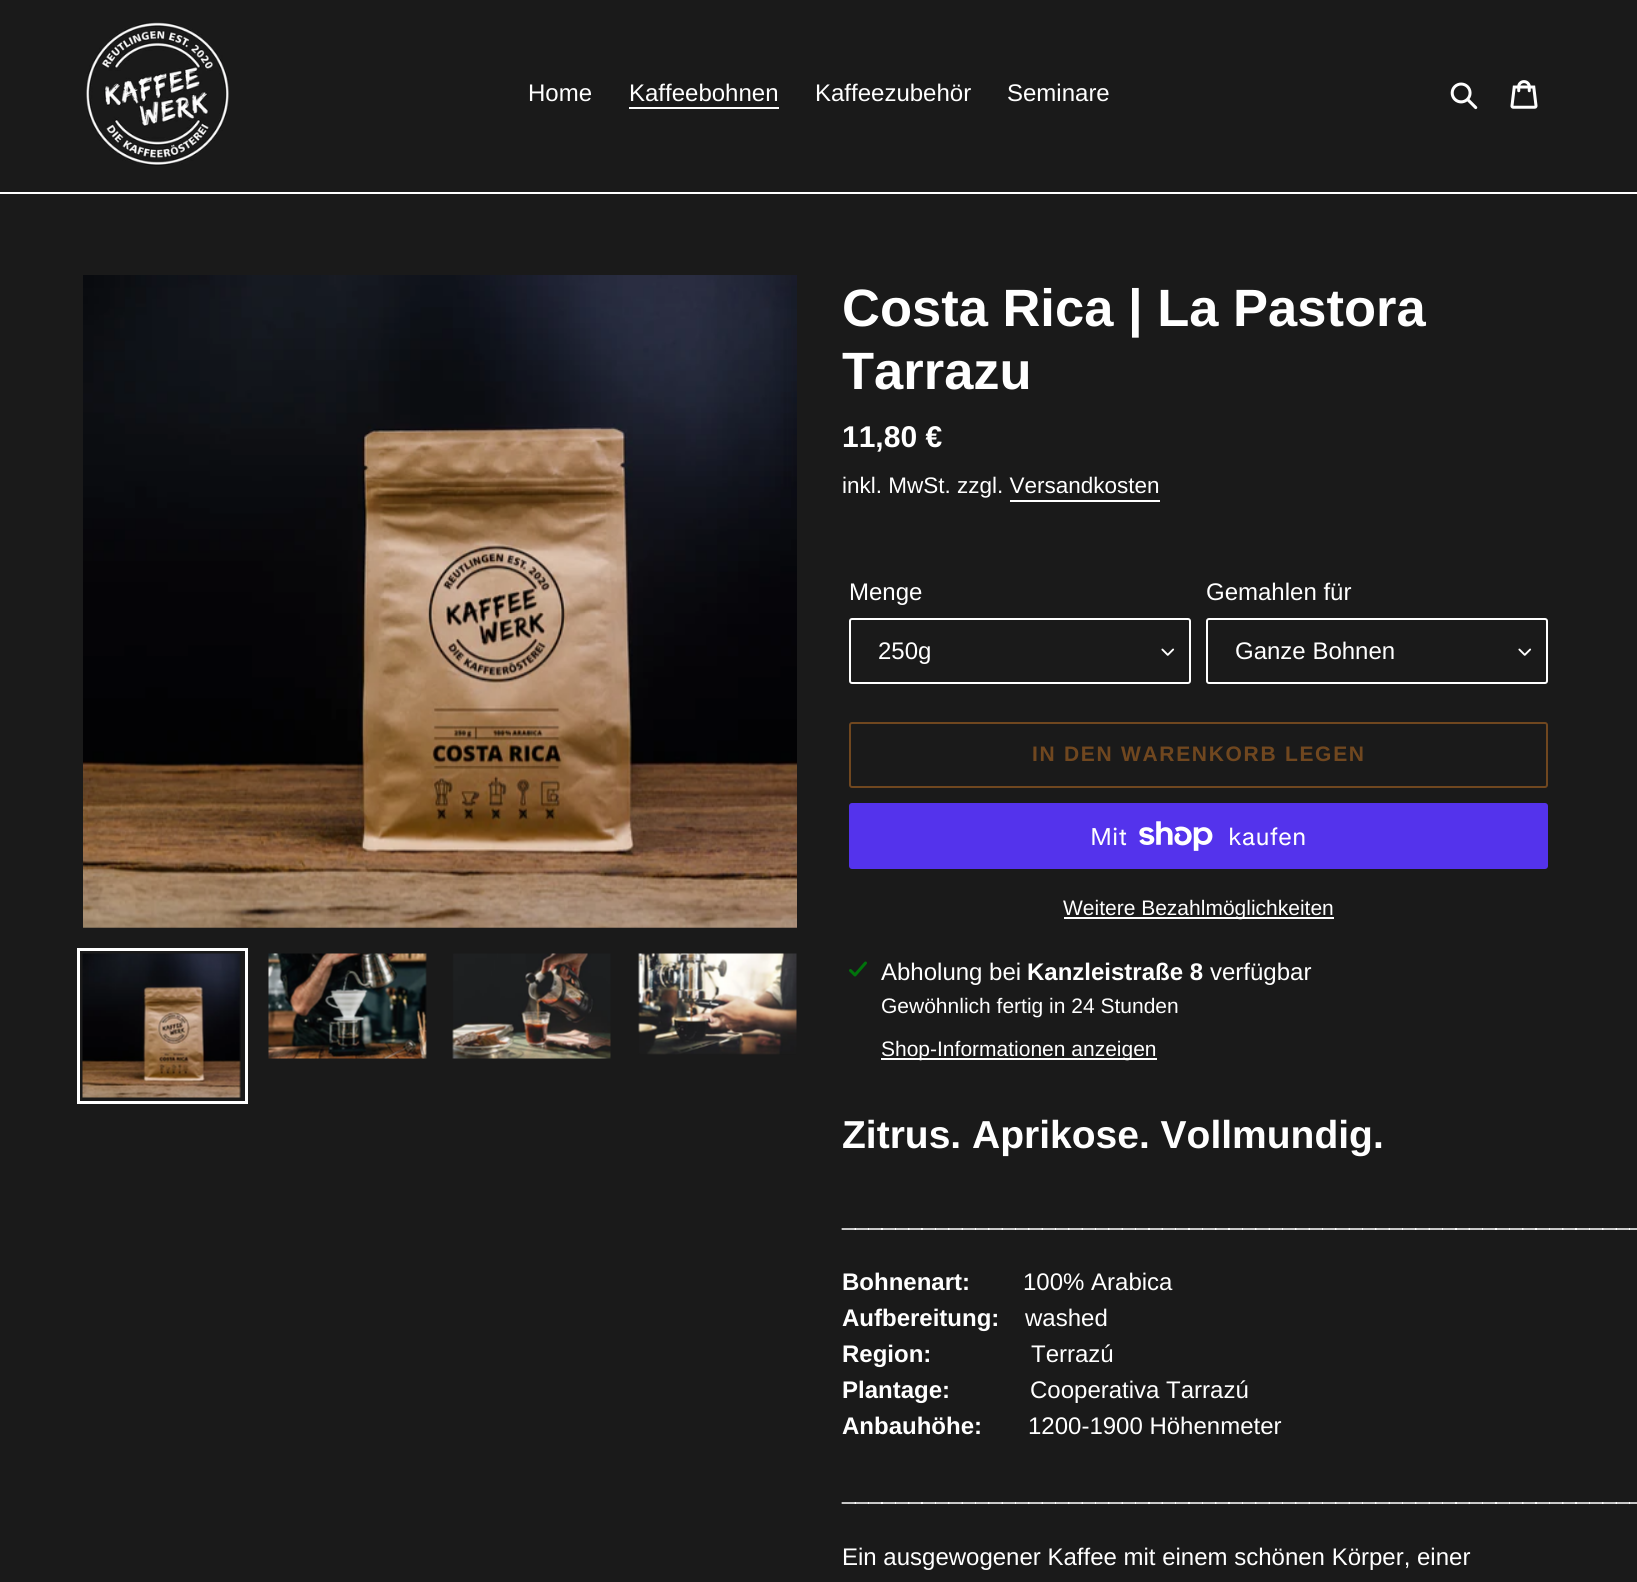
import math
import cairo

surface = cairo.ImageSurface(cairo.FORMAT_RGB24, 1637, 1582)
ctx = cairo.Context(surface)
options = cairo.FontOptions()
options.set_hint_metrics(cairo.HINT_METRICS_OFF)
options.set_hint_style(cairo.HINT_STYLE_NONE)
ctx.set_font_options(options)
ctx.set_miter_limit(4)


def spaced_text(x, y, s, letter, word):
    ctx.move_to(x, y)
    for ch in s:
        ctx.show_text(ch)
        ctx.rel_move_to(letter + word * (ch == ' '), 0)


def round_rect(x, y, w, h, r):
    ctx.new_sub_path()
    for i, (u, v) in enumerate([(x + w - r, y + h - r), (x + r, y + h - r), (x + r, y + r), (x + w - r, y + r)]):
        ctx.arc(u, v, r, i * math.pi / 2, (i + 1) * math.pi / 2)
    ctx.close_path()


def picture(path, x, y, w, h):
    ctx.save()
    ctx.set_source_surface(cairo.ImageSurface.create_from_png(path), x, y)
    ctx.rectangle(x, y, w, h)
    ctx.fill()
    ctx.restore()


ctx.set_source_rgb(0.102, 0.102, 0.102)
ctx.paint()
ctx.set_source_rgb(1, 1, 1)
ctx.rectangle(0, 192, 1637, 2)
ctx.fill()
picture("img1.png", 86, 22, 143, 144)
ctx.select_font_face("Liberation Sans")
ctx.set_font_size(24)
ctx.move_to(528, 101)
ctx.show_text("Home")
ctx.move_to(629, 101)
ctx.show_text("Kaffeebohnen")
ctx.rectangle(629, 107, 150, 2)
ctx.fill()
ctx.move_to(815, 101)
ctx.show_text("Kaffeezubehör")
ctx.move_to(1007, 101)
ctx.show_text("Seminare")
picture("img2.png", 1450, 82, 28, 28)
picture("img3.png", 1510, 80, 28, 29)
picture("img4.png", 83, 275, 714, 653)
ctx.rectangle(78.5, 949.5, 168, 153)
ctx.set_line_width(3)
ctx.stroke()
picture("img5.png", 82, 953, 159, 145)
picture("img6.png", 268, 953, 159, 106)
picture("img7.png", 452, 953, 159, 106)
picture("img8.png", 638, 953, 159, 102)
ctx.select_font_face("Liberation Sans", cairo.FONT_SLANT_NORMAL, cairo.FONT_WEIGHT_BOLD)
ctx.set_font_size(52.5)
ctx.move_to(842, 326)
ctx.show_text("Costa Rica | La Pastora")
ctx.move_to(842, 389)
ctx.show_text("Tarrazu")
ctx.set_font_size(30)
ctx.move_to(842, 447)
ctx.show_text("11,80 €")
ctx.select_font_face("Liberation Sans")
ctx.set_font_size(22.5)
ctx.move_to(842, 493)
ctx.show_text("inkl. MwSt. zzgl. Versandkosten")
ctx.rectangle(1010, 500, 150, 2)
ctx.fill()
ctx.set_font_size(24)
ctx.move_to(849, 600)
ctx.show_text("Menge")
picture("img9.png", 1161, 648, 14, 8)
round_rect(850, 619, 340, 64, 2)
ctx.set_line_width(2)
ctx.stroke()
ctx.move_to(878, 659)
ctx.show_text("250g")
ctx.move_to(1206, 600)
ctx.show_text("Gemahlen für")
picture("img9.png", 1518, 648, 14, 8)
round_rect(1207, 619, 340, 64, 2)
ctx.stroke()
ctx.move_to(1235, 659)
ctx.show_text("Ganze Bohnen")
round_rect(850, 723, 697, 64, 2)
ctx.set_source_rgb(0.439, 0.278, 0.122)
ctx.stroke()
ctx.select_font_face("Liberation Sans", cairo.FONT_SLANT_NORMAL, cairo.FONT_WEIGHT_BOLD)
ctx.set_font_size(21)
spaced_text(1032, 761, "IN DEN WARENKORB LEGEN", 1.7, 0)
ctx.set_source_rgb(0.329, 0.2, 0.922)
round_rect(849, 803, 699, 66, 3)
ctx.fill()
ctx.select_font_face("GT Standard")
ctx.set_font_size(24)
ctx.set_source_rgb(1, 1, 1)
ctx.move_to(1090, 845)
ctx.show_text("Mit")
picture("img10.png", 1139, 821, 74, 30)
ctx.move_to(1228, 845)
ctx.show_text("kaufen")
ctx.rectangle(1064, 917, 270, 2)
ctx.fill()
ctx.select_font_face("Liberation Sans")
ctx.set_font_size(21)
ctx.move_to(1063, 915)
ctx.show_text("Weitere Bezahlmöglichkeiten")
picture("img11.png", 849, 961, 18, 16)
ctx.set_font_size(24)
ctx.move_to(881, 980)
ctx.show_text("Abholung bei")
ctx.select_font_face("Liberation Sans", cairo.FONT_SLANT_NORMAL, cairo.FONT_WEIGHT_BOLD)
ctx.move_to(1027, 980)
ctx.show_text("Kanzleistraße 8")
ctx.select_font_face("Liberation Sans")
ctx.move_to(1210, 980)
ctx.show_text("verfügbar")
ctx.set_font_size(21)
ctx.move_to(881, 1013)
ctx.show_text("Gewöhnlich fertig in 24 Stunden")
ctx.rectangle(881, 1058, 276, 2)
ctx.fill()
ctx.move_to(881, 1056)
ctx.show_text("Shop-Informationen anzeigen")
ctx.select_font_face("Liberation Sans", cairo.FONT_SLANT_NORMAL, cairo.FONT_WEIGHT_BOLD)
ctx.set_font_size(39)
ctx.move_to(842, 1148)
ctx.show_text("Zitrus. Aprikose. Vollmundig.")
ctx.select_font_face("Liberation Sans")
ctx.set_font_size(24)
ctx.move_to(842, 1225)
ctx.show_text("____________________________________________________________")
ctx.select_font_face("Liberation Sans", cairo.FONT_SLANT_NORMAL, cairo.FONT_WEIGHT_BOLD)
ctx.move_to(842, 1290)
ctx.show_text("Bohnenart:")
ctx.select_font_face("Liberation Sans")
ctx.move_to(1023, 1290)
ctx.show_text("100% Arabica")
ctx.select_font_face("Liberation Sans", cairo.FONT_SLANT_NORMAL, cairo.FONT_WEIGHT_BOLD)
ctx.move_to(842, 1326)
ctx.show_text("Aufbereitung:")
ctx.select_font_face("Liberation Sans")
ctx.move_to(1025, 1326)
ctx.show_text("washed")
ctx.select_font_face("Liberation Sans", cairo.FONT_SLANT_NORMAL, cairo.FONT_WEIGHT_BOLD)
ctx.move_to(842, 1362)
ctx.show_text("Region:")
ctx.select_font_face("Liberation Sans")
ctx.move_to(1031, 1362)
ctx.show_text("Terrazú")
ctx.select_font_face("Liberation Sans", cairo.FONT_SLANT_NORMAL, cairo.FONT_WEIGHT_BOLD)
ctx.move_to(842, 1398)
ctx.show_text("Plantage:")
ctx.select_font_face("Liberation Sans")
ctx.move_to(1030, 1398)
ctx.show_text("Cooperativa Tarrazú")
ctx.select_font_face("Liberation Sans", cairo.FONT_SLANT_NORMAL, cairo.FONT_WEIGHT_BOLD)
ctx.move_to(842, 1434)
ctx.show_text("Anbauhöhe:")
ctx.select_font_face("Liberation Sans")
ctx.move_to(1028, 1434)
ctx.show_text("1200-1900 Höhenmeter")
ctx.move_to(842, 1499)
ctx.show_text("____________________________________________________________")
ctx.move_to(842, 1565)
ctx.show_text("Ein ausgewogener Kaffee mit einem schönen Körper, einer")
surface.write_to_png("page.png")
